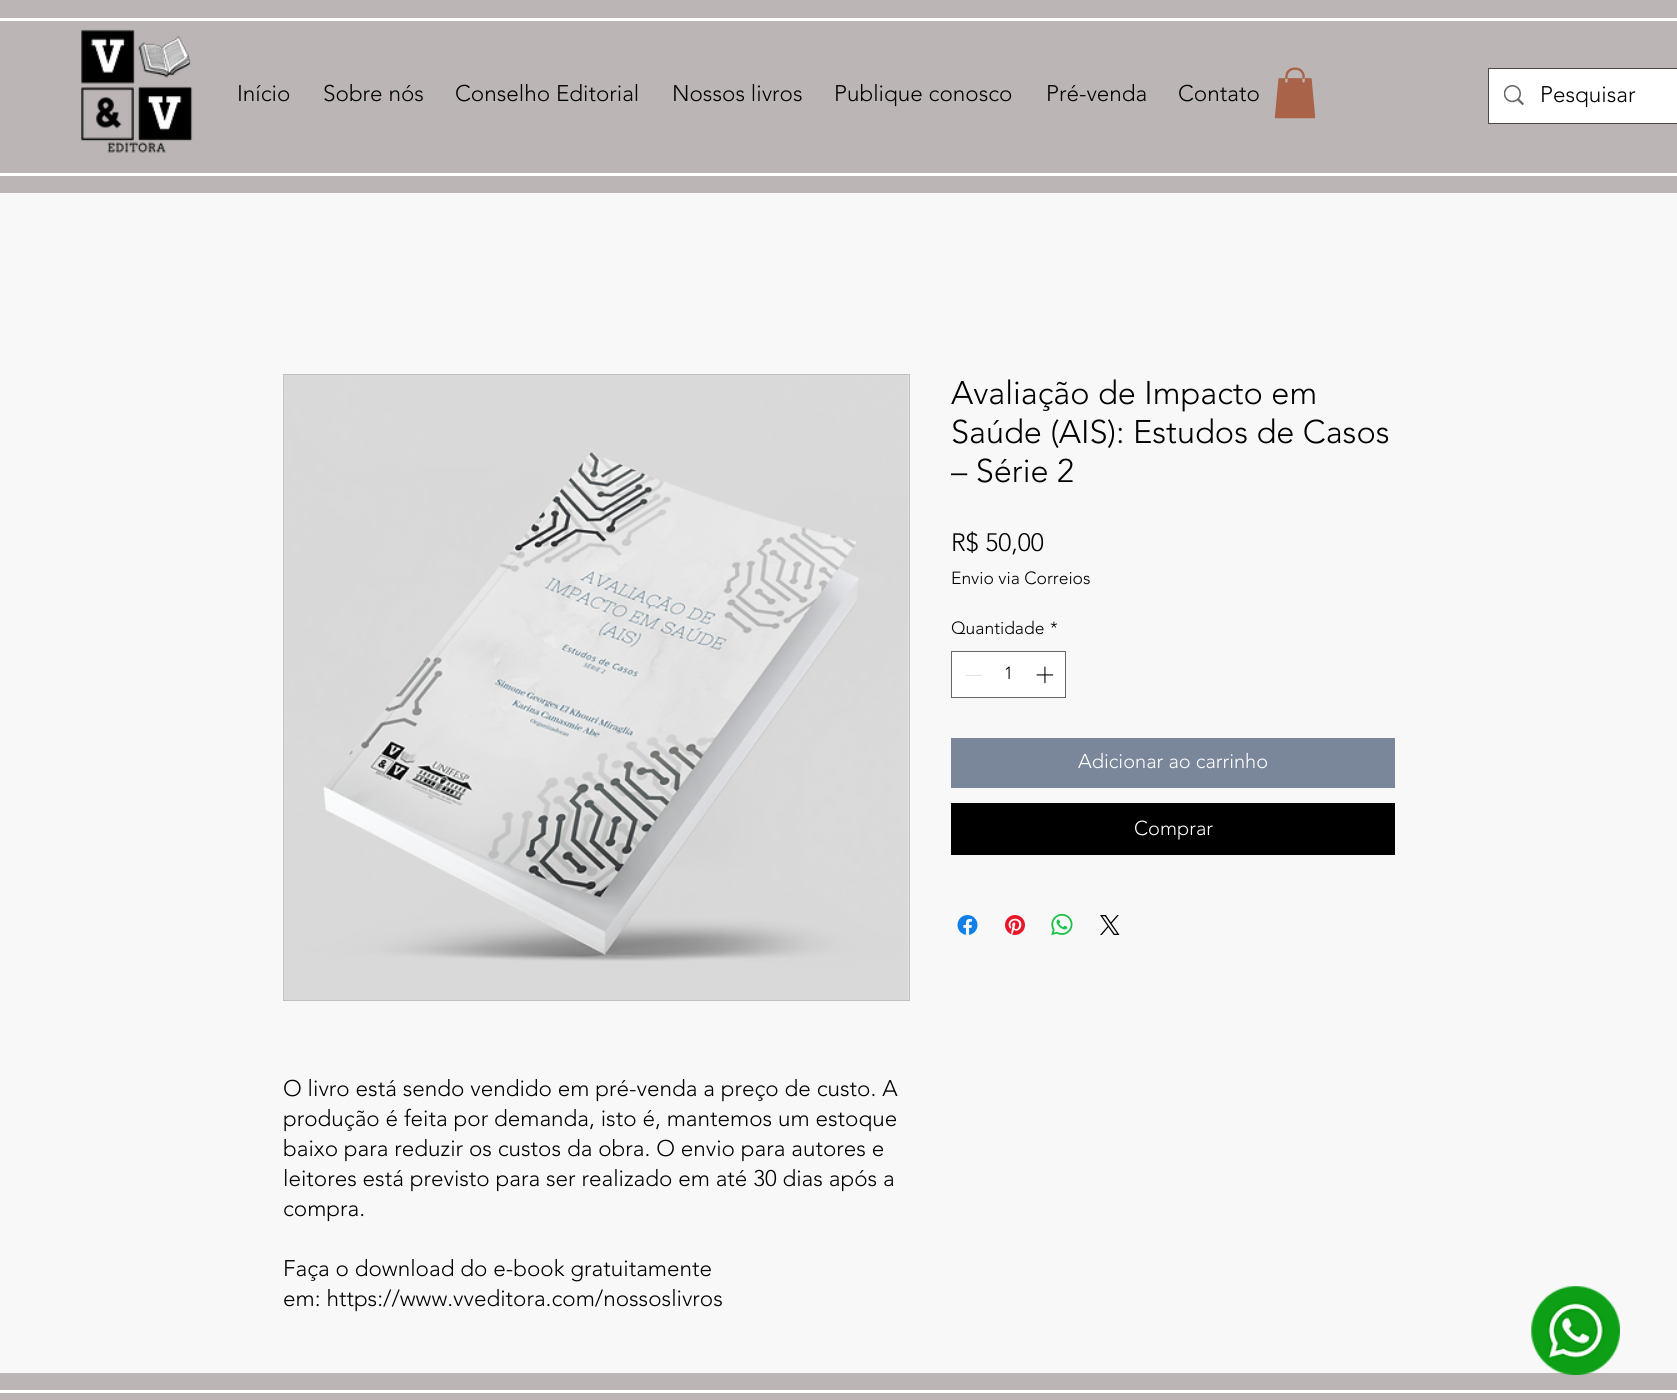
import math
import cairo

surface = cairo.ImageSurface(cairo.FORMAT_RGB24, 1677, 1400)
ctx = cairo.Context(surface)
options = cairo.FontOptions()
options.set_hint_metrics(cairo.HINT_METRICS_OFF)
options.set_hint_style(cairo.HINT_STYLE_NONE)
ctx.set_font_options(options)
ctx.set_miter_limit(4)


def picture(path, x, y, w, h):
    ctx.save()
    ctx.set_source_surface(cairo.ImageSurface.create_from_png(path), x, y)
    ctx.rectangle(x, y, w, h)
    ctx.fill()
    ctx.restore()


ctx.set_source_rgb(0.969, 0.969, 0.969)
ctx.paint()
ctx.set_source_rgb(0.733, 0.714, 0.71)
ctx.rectangle(0, 0, 1677, 193)
ctx.fill()
ctx.set_source_rgb(1, 1, 1)
ctx.rectangle(0, 18, 1677, 3)
ctx.fill()
ctx.rectangle(0, 173, 1677, 3)
ctx.fill()
picture("img1.png", 81, 29, 112, 124)
ctx.select_font_face("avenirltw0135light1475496 Light")
ctx.set_font_size(22.5)
ctx.set_source_rgb(0, 0, 0)
ctx.move_to(237, 101)
ctx.show_text("Início")
ctx.move_to(323, 101)
ctx.show_text("Sobre nós")
ctx.move_to(455, 101)
ctx.show_text("Conselho Editorial")
ctx.move_to(672, 101)
ctx.show_text("Nossos livros")
ctx.move_to(834, 101)
ctx.show_text("Publique conosco")
ctx.move_to(1046, 101)
ctx.show_text("Pré-venda")
ctx.move_to(1178, 101)
ctx.show_text("Contato")
picture("img2.png", 1274, 67, 42, 52)
ctx.rectangle(1488.5, 68.5, 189, 55)
ctx.set_source_rgb(0.294, 0.286, 0.282)
ctx.set_line_width(1)
ctx.stroke()
ctx.set_source_rgb(1, 1, 1)
ctx.rectangle(1489, 69, 188, 54)
ctx.fill()
picture("img3.png", 1504, 85, 20, 21)
ctx.set_source_rgb(0, 0, 0)
ctx.move_to(1540, 102)
ctx.show_text("Pesquisar")
ctx.set_font_size(32.5)
ctx.move_to(951, 404)
ctx.show_text("Avaliação de Impacto em")
ctx.move_to(951, 443)
ctx.show_text("Saúde (AIS): Estudos de Casos")
ctx.move_to(951, 482)
ctx.show_text("– Série 2")
ctx.set_font_size(25)
ctx.move_to(951, 551)
ctx.show_text("R$ 50,00")
ctx.set_font_size(17.5)
ctx.move_to(951, 584)
ctx.show_text("Envio via Correios")
ctx.move_to(951, 634)
ctx.show_text("Quantidade")
ctx.move_to(1050, 634)
ctx.show_text("*")
ctx.set_source_rgb(1, 1, 1)
ctx.rectangle(951.5, 651.5, 114, 46)
ctx.fill_preserve()
ctx.set_source_rgb(0.4, 0.4, 0.4)
ctx.stroke()
ctx.set_source_rgb(0.89, 0.89, 0.89)
ctx.rectangle(966, 675, 16, 1)
ctx.fill()
ctx.set_source_rgb(0, 0, 0)
ctx.move_to(1004, 679)
ctx.show_text("1")
picture("img4.png", 1036, 666, 18, 18)
ctx.set_source_rgb(0.478, 0.525, 0.6)
ctx.rectangle(951, 738, 444, 50)
ctx.fill()
ctx.set_font_size(20)
ctx.set_source_rgb(1, 1, 1)
ctx.move_to(1078, 768)
ctx.show_text("Adicionar ao carrinho")
ctx.set_source_rgb(0, 0, 0)
ctx.rectangle(951, 803, 444, 52)
ctx.fill()
ctx.set_source_rgb(1, 1, 1)
ctx.move_to(1134, 835)
ctx.show_text("Comprar")
picture("img5.png", 957, 915, 21, 20)
picture("img6.png", 1005, 915, 20, 20)
picture("img7.png", 1051, 913, 22, 23)
picture("img8.png", 1100, 915, 20, 20)
ctx.rectangle(283.5, 374.5, 626, 626)
ctx.set_source_rgb(0.749, 0.749, 0.749)
ctx.stroke()
picture("img9.png", 283, 375, 626, 625)
ctx.set_font_size(22.5)
ctx.set_source_rgb(0, 0, 0)
ctx.move_to(283, 1096)
ctx.show_text("O livro está sendo vendido em pré-venda a preço de custo. A")
ctx.move_to(283, 1126)
ctx.show_text("produção é feita por demanda, isto é, mantemos um estoque")
ctx.move_to(283, 1156)
ctx.show_text("baixo para reduzir os custos da obra. O envio para autores e")
ctx.move_to(283, 1186)
ctx.show_text("leitores está previsto para ser realizado em até 30 dias após a")
ctx.move_to(283, 1216)
ctx.show_text("compra.")
ctx.move_to(283, 1276)
ctx.show_text("Faça o download do e-book gratuitamente")
ctx.move_to(283, 1306)
ctx.show_text("em: https://www.vveditora.com/nossoslivros")
ctx.set_source_rgb(0.733, 0.714, 0.71)
ctx.rectangle(0, 1373, 1677, 27)
ctx.fill()
picture("img10.png", 1531, 1286, 89, 89)
ctx.set_source_rgb(1, 1, 1)
ctx.rectangle(0, 1390, 1677, 3)
ctx.fill()
surface.write_to_png("page.png")
